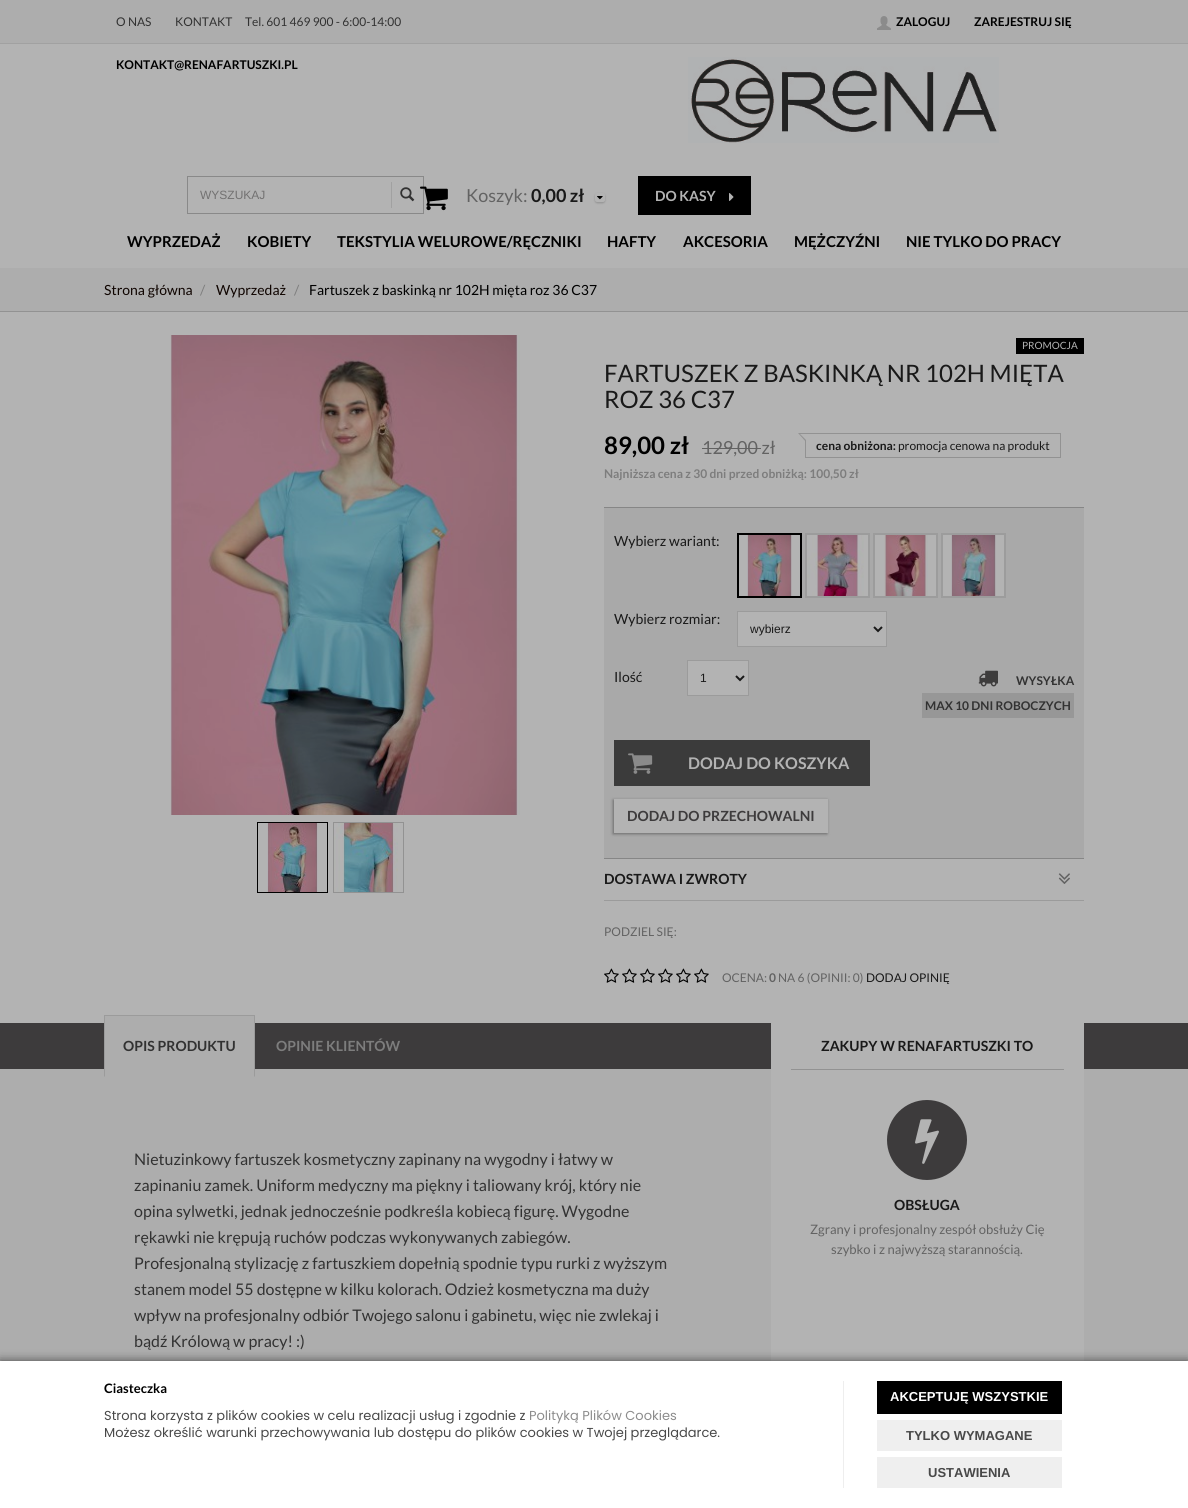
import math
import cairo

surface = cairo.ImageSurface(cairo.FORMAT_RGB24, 1188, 1508)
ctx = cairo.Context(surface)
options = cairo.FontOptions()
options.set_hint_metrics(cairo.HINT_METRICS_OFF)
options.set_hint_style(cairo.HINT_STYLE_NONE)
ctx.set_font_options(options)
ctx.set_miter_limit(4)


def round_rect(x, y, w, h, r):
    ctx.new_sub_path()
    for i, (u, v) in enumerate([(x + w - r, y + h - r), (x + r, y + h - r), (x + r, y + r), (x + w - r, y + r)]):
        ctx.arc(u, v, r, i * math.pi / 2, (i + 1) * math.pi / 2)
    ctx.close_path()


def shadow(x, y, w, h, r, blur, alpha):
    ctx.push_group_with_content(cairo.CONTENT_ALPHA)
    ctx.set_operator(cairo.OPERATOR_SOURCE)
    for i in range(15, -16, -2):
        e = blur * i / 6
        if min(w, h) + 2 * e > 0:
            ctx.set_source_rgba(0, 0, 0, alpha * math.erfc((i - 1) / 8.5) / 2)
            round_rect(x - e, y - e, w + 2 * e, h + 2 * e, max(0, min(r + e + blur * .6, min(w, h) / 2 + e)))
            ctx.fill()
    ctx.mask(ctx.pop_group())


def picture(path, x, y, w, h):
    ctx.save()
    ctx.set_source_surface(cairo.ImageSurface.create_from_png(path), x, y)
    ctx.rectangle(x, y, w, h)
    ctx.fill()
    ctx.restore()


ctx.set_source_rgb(0.678, 0.678, 0.678)
ctx.paint()
ctx.set_source_rgb(0.631, 0.631, 0.631)
ctx.rectangle(0, 43, 1188, 1)
ctx.fill()
ctx.select_font_face("Lato")
ctx.set_font_size(12)
ctx.set_source_rgb(0.196, 0.196, 0.196)
ctx.move_to(116, 26)
ctx.show_text("O NAS")
ctx.move_to(175, 26)
ctx.show_text("KONTAKT")
ctx.move_to(245, 26)
ctx.show_text("Tel. 601 469 900 - 6:00-14:00")
ctx.set_source_rgb(0.702, 0.702, 0.702)
ctx.rectangle(0, 44, 1188, 224)
ctx.fill()
ctx.select_font_face("Lato", cairo.FONT_SLANT_NORMAL, cairo.FONT_WEIGHT_BOLD)
ctx.set_source_rgb(0, 0, 0)
ctx.move_to(116, 69)
ctx.show_text("KONTAKT@RENAFARTUSZKI.PL")
picture("img1.png", 877, 16, 14, 14)
ctx.move_to(896, 26)
ctx.show_text("ZALOGUJ")
ctx.move_to(974, 26)
ctx.show_text("ZAREJESTRUJ SIĘ")
picture("img2.png", 688, 57, 311, 86)
ctx.rectangle(187.5, 176.5, 236, 37)
ctx.set_source_rgb(0.537, 0.537, 0.537)
ctx.set_line_width(1)
ctx.stroke()
ctx.select_font_face("Liberation Sans")
ctx.set_source_rgb(0.447, 0.443, 0.443)
ctx.move_to(200, 199)
ctx.show_text("WYSZUKAJ")
ctx.set_source_rgb(0.631, 0.631, 0.631)
ctx.rectangle(391, 182, 1, 26)
ctx.fill()
picture("img3.png", 400, 187, 15, 15)
picture("img4.png", 420, 186, 28, 25)
ctx.select_font_face("Lato")
ctx.set_font_size(18)
ctx.set_source_rgb(0.388, 0.388, 0.388)
ctx.move_to(466, 202)
ctx.show_text("Koszyk:")
ctx.select_font_face("Lato", cairo.FONT_SLANT_NORMAL, cairo.FONT_WEIGHT_BOLD)
ctx.set_source_rgb(0.098, 0.098, 0.098)
ctx.move_to(531, 202)
ctx.show_text("0,00 zł")
ctx.set_source_rgb(0, 0, 0)
shadow(595, 194, 10, 9, 2, 1, 0.2)
ctx.set_source_rgb(0.702, 0.702, 0.702)
round_rect(595, 193, 10, 9, 2)
ctx.fill()
picture("img5.png", 597, 196, 6, 4)
ctx.set_source_rgb(0, 0, 0)
ctx.rectangle(638, 176, 113, 39)
ctx.fill()
ctx.set_font_size(14)
ctx.set_source_rgb(0.702, 0.702, 0.702)
ctx.move_to(655, 201)
ctx.show_text("DO KASY")
picture("img6.png", 729, 193, 5, 8)
ctx.set_font_size(15)
ctx.set_source_rgb(0, 0, 0)
ctx.move_to(127, 247)
ctx.show_text("WYPRZEDAŻ")
ctx.move_to(247, 247)
ctx.show_text("KOBIETY")
ctx.move_to(337, 247)
ctx.show_text("TEKSTYLIA WELUROWE/RĘCZNIKI")
ctx.move_to(607, 247)
ctx.show_text("HAFTY")
ctx.move_to(683, 247)
ctx.show_text("AKCESORIA")
ctx.move_to(794, 247)
ctx.show_text("MĘŻCZYŹNI")
ctx.move_to(906, 247)
ctx.show_text("NIE TYLKO DO PRACY")
ctx.set_source_rgb(0.573, 0.573, 0.573)
ctx.rectangle(0, 311, 1188, 1)
ctx.fill()
ctx.select_font_face("Lato")
ctx.set_font_size(14)
ctx.set_source_rgb(0.059, 0.016, 0)
ctx.move_to(104, 295)
ctx.show_text("Strona główna")
ctx.set_source_rgb(0.49, 0.49, 0.49)
ctx.move_to(200, 295)
ctx.show_text("/")
ctx.set_source_rgb(0.059, 0.016, 0)
ctx.move_to(216, 295)
ctx.show_text("Wyprzedaż")
ctx.set_source_rgb(0.49, 0.49, 0.49)
ctx.move_to(294, 295)
ctx.show_text("/")
ctx.set_source_rgb(0, 0, 0)
ctx.move_to(309, 295)
ctx.show_text("Fartuszek z baskinką nr 102H mięta roz 36 C37")
ctx.set_source_rgb(0.702, 0.702, 0.702)
ctx.rectangle(0, 312, 1188, 711)
ctx.fill()
picture("img7.png", 170, 335, 350, 480)
ctx.rectangle(257.5, 822.5, 70, 70)
ctx.set_source_rgb(0, 0, 0)
ctx.stroke()
picture("img8.png", 267, 823, 51, 69)
ctx.rectangle(333.5, 822.5, 70, 70)
ctx.set_source_rgb(0.573, 0.573, 0.573)
ctx.stroke()
picture("img9.png", 334, 823, 64, 69)
ctx.set_source_rgb(0, 0, 0)
ctx.rectangle(1016, 338, 68, 16)
ctx.fill()
ctx.set_font_size(10)
ctx.set_source_rgb(0.702, 0.702, 0.702)
ctx.move_to(1022, 349)
ctx.show_text("PROMOCJA")
ctx.set_font_size(24)
ctx.set_source_rgb(0.098, 0.098, 0.098)
ctx.move_to(604, 382)
ctx.show_text("FARTUSZEK Z BASKINKĄ NR 102H MIĘTA")
ctx.move_to(604, 408)
ctx.show_text("ROZ 36 C37")
ctx.select_font_face("Lato", cairo.FONT_SLANT_NORMAL, cairo.FONT_WEIGHT_BOLD)
ctx.set_source_rgb(0, 0, 0)
ctx.move_to(604, 454)
ctx.show_text("89,00 zł")
ctx.select_font_face("Lato")
ctx.set_font_size(18)
ctx.set_source_rgb(0.388, 0.388, 0.388)
ctx.move_to(702, 454)
ctx.show_text("129,00 zł")
ctx.set_source_rgb(0.384, 0.384, 0.384)
ctx.rectangle(702, 448, 59, 1)
ctx.fill()
ctx.rectangle(805.5, 433.5, 255, 24)
ctx.set_source_rgb(0.573, 0.573, 0.573)
ctx.stroke()
ctx.new_path()
ctx.move_to(806, 433)
ctx.line_to(806, 442)
ctx.line_to(798, 433)
ctx.close_path()
ctx.fill()
ctx.set_source_rgb(0.702, 0.702, 0.702)
ctx.new_path()
ctx.move_to(807, 434)
ctx.line_to(807, 441)
ctx.line_to(800, 434)
ctx.close_path()
ctx.fill()
ctx.select_font_face("Lato", cairo.FONT_SLANT_NORMAL, cairo.FONT_WEIGHT_BOLD)
ctx.set_font_size(12)
ctx.set_source_rgb(0.098, 0.098, 0.098)
ctx.move_to(816, 450)
ctx.show_text("cena obniżona:")
ctx.select_font_face("Lato")
ctx.move_to(898, 450)
ctx.show_text("promocja cenowa na produkt")
ctx.select_font_face("Lato", cairo.FONT_SLANT_NORMAL, cairo.FONT_WEIGHT_BOLD)
ctx.set_source_rgb(0.49, 0.49, 0.49)
ctx.move_to(604, 478)
ctx.show_text("Najniższa cena z 30 dni przed obniżką: 100,50 zł")
ctx.set_source_rgb(0.663, 0.663, 0.663)
ctx.rectangle(604, 508, 480, 350)
ctx.fill()
ctx.set_source_rgb(0.525, 0.525, 0.525)
ctx.rectangle(604, 507, 480, 1)
ctx.fill()
ctx.rectangle(604, 858, 480, 1)
ctx.fill()
ctx.select_font_face("Lato")
ctx.set_font_size(14)
ctx.set_source_rgb(0.098, 0.098, 0.098)
ctx.move_to(614, 546)
ctx.show_text("Wybierz wariant:")
ctx.set_source_rgb(0.702, 0.702, 0.702)
ctx.rectangle(738, 534, 63, 63)
ctx.fill_preserve()
ctx.set_source_rgb(0, 0, 0)
ctx.set_line_width(2)
ctx.stroke()
picture("img10.png", 747, 535, 45, 61)
ctx.set_source_rgb(0.702, 0.702, 0.702)
ctx.rectangle(864, 535, 4, 61)
ctx.fill()
ctx.rectangle(806, 534, 63, 63)
ctx.set_source_rgb(0.612, 0.612, 0.612)
ctx.stroke()
picture("img11.png", 807, 535, 57, 61)
ctx.set_source_rgb(0.702, 0.702, 0.702)
ctx.rectangle(874, 534, 63, 63)
ctx.fill_preserve()
ctx.set_source_rgb(0.612, 0.612, 0.612)
ctx.stroke()
picture("img12.png", 884, 535, 44, 61)
ctx.set_source_rgb(0.702, 0.702, 0.702)
ctx.rectangle(942, 534, 63, 63)
ctx.fill_preserve()
ctx.set_source_rgb(0.612, 0.612, 0.612)
ctx.stroke()
picture("img13.png", 951, 535, 45, 61)
ctx.set_source_rgb(0.098, 0.098, 0.098)
ctx.move_to(614, 624)
ctx.show_text("Wybierz rozmiar:")
ctx.set_source_rgb(0.702, 0.702, 0.702)
ctx.rectangle(737.5, 611.5, 149, 35)
ctx.fill_preserve()
ctx.set_source_rgb(0.608, 0.608, 0.608)
ctx.set_line_width(1)
ctx.stroke()
ctx.new_path()
ctx.move_to(874, 627)
ctx.line_to(878, 631)
ctx.line_to(882, 627)
ctx.set_source_rgb(0.098, 0.098, 0.098)
ctx.set_line_width(2)
ctx.stroke()
ctx.select_font_face("Liberation Sans")
ctx.set_font_size(12)
ctx.move_to(750, 633)
ctx.show_text("wybierz")
ctx.select_font_face("Lato")
ctx.set_font_size(14)
ctx.move_to(614, 682)
ctx.show_text("Ilość")
ctx.set_source_rgb(0.702, 0.702, 0.702)
ctx.rectangle(687.5, 660.5, 61, 35)
ctx.fill_preserve()
ctx.set_source_rgb(0.608, 0.608, 0.608)
ctx.set_line_width(1)
ctx.stroke()
ctx.new_path()
ctx.move_to(736, 676)
ctx.line_to(740, 680)
ctx.line_to(744, 676)
ctx.set_source_rgb(0.098, 0.098, 0.098)
ctx.set_line_width(2)
ctx.stroke()
ctx.select_font_face("Liberation Sans")
ctx.set_font_size(12)
ctx.move_to(700, 682)
ctx.show_text("1")
picture("img14.png", 978, 670, 20, 17)
ctx.select_font_face("Lato", cairo.FONT_SLANT_NORMAL, cairo.FONT_WEIGHT_BOLD)
ctx.set_source_rgb(0.196, 0.196, 0.196)
ctx.move_to(1016, 685)
ctx.show_text("WYSYŁKA")
ctx.set_source_rgb(0.592, 0.592, 0.592)
ctx.rectangle(922, 693, 152, 25)
ctx.fill()
ctx.set_source_rgb(0.196, 0.196, 0.196)
ctx.move_to(925, 710)
ctx.show_text("MAX 10 DNI ROBOCZYCH")
ctx.set_source_rgb(0.231, 0.231, 0.231)
ctx.rectangle(614, 740, 256, 46)
ctx.fill()
picture("img15.png", 628, 753, 25, 21)
ctx.set_font_size(16)
ctx.set_source_rgb(0.702, 0.702, 0.702)
ctx.move_to(688, 769)
ctx.show_text("DODAJ DO KOSZYKA")
ctx.set_source_rgb(0.416, 0.416, 0.416)
shadow(613, 800, 214, 34, 0, 1.5, 1)
ctx.set_source_rgb(0.702, 0.702, 0.702)
ctx.rectangle(614, 799, 214, 34)
ctx.fill()
ctx.set_font_size(14)
ctx.set_source_rgb(0.239, 0.231, 0.235)
ctx.move_to(627, 821)
ctx.show_text("DODAJ DO PRZECHOWALNI")
ctx.set_source_rgb(0.608, 0.608, 0.608)
ctx.rectangle(604, 900, 480, 1)
ctx.fill()
ctx.set_source_rgb(0.098, 0.098, 0.098)
ctx.move_to(604, 884)
ctx.show_text("DOSTAWA I ZWROTY")
picture("img16.png", 1058, 873, 12, 11)
ctx.select_font_face("Lato")
ctx.set_font_size(12)
ctx.set_source_rgb(0.388, 0.388, 0.388)
ctx.move_to(604, 936)
ctx.show_text("PODZIEL SIĘ:")
picture("img17.png", 604, 968, 15, 15)
picture("img17.png", 622, 968, 15, 15)
picture("img17.png", 640, 968, 15, 15)
picture("img17.png", 658, 968, 15, 15)
picture("img17.png", 676, 968, 15, 15)
picture("img17.png", 694, 968, 15, 15)
ctx.move_to(722, 982)
ctx.show_text("OCENA:")
ctx.select_font_face("Lato", cairo.FONT_SLANT_NORMAL, cairo.FONT_WEIGHT_BOLD)
ctx.move_to(769, 982)
ctx.show_text("0")
ctx.select_font_face("Lato")
ctx.move_to(778, 982)
ctx.show_text("NA 6 (OPINII: 0)")
ctx.set_source_rgb(0.098, 0.098, 0.098)
ctx.move_to(866, 982)
ctx.show_text("DODAJ OPINIĘ")
ctx.set_source_rgb(0.239, 0.231, 0.235)
ctx.rectangle(0, 1023, 1188, 46)
ctx.fill()
ctx.set_source_rgb(0.678, 0.678, 0.678)
ctx.rectangle(104, 1016, 151, 53)
ctx.fill()
ctx.set_source_rgb(0.608, 0.608, 0.608)
ctx.rectangle(104, 1015, 151, 1)
ctx.fill()
ctx.new_path()
ctx.move_to(255, 1015)
ctx.line_to(255, 1077)
ctx.line_to(254, 1076)
ctx.line_to(254, 1016)
ctx.close_path()
ctx.fill()
ctx.new_path()
ctx.move_to(104, 1077)
ctx.line_to(104, 1015)
ctx.line_to(105, 1016)
ctx.line_to(105, 1076)
ctx.close_path()
ctx.fill()
ctx.select_font_face("Lato", cairo.FONT_SLANT_NORMAL, cairo.FONT_WEIGHT_BOLD)
ctx.set_font_size(14)
ctx.set_source_rgb(0.196, 0.196, 0.196)
ctx.move_to(123, 1051)
ctx.show_text("OPIS PRODUKTU")
ctx.set_source_rgb(0.49, 0.49, 0.49)
ctx.move_to(276, 1051)
ctx.show_text("OPINIE KLIENTÓW")
ctx.select_font_face("Lato")
ctx.set_font_size(16)
ctx.set_source_rgb(0.196, 0.196, 0.196)
ctx.move_to(134, 1165)
ctx.show_text("Nietuzinkowy fartuszek kosmetyczny zapinany na wygodny i łatwy w")
ctx.move_to(134, 1191)
ctx.show_text("zapinaniu zamek. Uniform medyczny ma piękny i taliowany krój, który nie")
ctx.move_to(134, 1217)
ctx.show_text("opina sylwetki, jednak jednocześnie podkreśla kobiecą figurę. Wygodne")
ctx.move_to(134, 1243)
ctx.show_text("rękawki nie krępują ruchów podczas wykonywanych zabiegów.")
ctx.move_to(134, 1269)
ctx.show_text("Profesjonalną stylizację z fartuszkiem dopełnią spodnie typu rurki z wyższym")
ctx.move_to(134, 1295)
ctx.show_text("stanem model 55 dostępne w kilku kolorach. Odzież kosmetyczna ma duży")
ctx.move_to(134, 1321)
ctx.show_text("wpływ na profesjonalny odbiór Twojego salonu i gabinetu, więc nie zwlekaj i")
ctx.move_to(134, 1347)
ctx.show_text("bądź Królową w pracy! :)")
ctx.set_source_rgb(0.702, 0.702, 0.702)
ctx.rectangle(771, 1023, 313, 338)
ctx.fill()
ctx.set_source_rgb(0.573, 0.573, 0.573)
ctx.rectangle(791, 1069, 273, 1)
ctx.fill()
ctx.select_font_face("Lato", cairo.FONT_SLANT_NORMAL, cairo.FONT_WEIGHT_BOLD)
ctx.set_font_size(14)
ctx.set_source_rgb(0.098, 0.098, 0.098)
ctx.move_to(821, 1051)
ctx.show_text("ZAKUPY W RENAFARTUSZKI TO")
ctx.set_source_rgb(0.239, 0.231, 0.235)
ctx.new_path()
ctx.arc(927, 1140, 40, 0, 2 * math.pi)
ctx.fill()
picture("img18.png", 915, 1119, 24, 45)
ctx.set_source_rgb(0.098, 0.098, 0.098)
ctx.move_to(894, 1210)
ctx.show_text("OBSŁUGA")
ctx.select_font_face("Lato")
ctx.set_font_size(13)
ctx.set_source_rgb(0.388, 0.388, 0.388)
ctx.move_to(810, 1234)
ctx.show_text("Zgrany i profesjonalny zespół obsłuży Cię")
ctx.move_to(831, 1254)
ctx.show_text("szybko i z najwyższą starannością.")
ctx.set_source_rgb(0, 0, 0)
shadow(0, 1361, 1188, 147, 0, 5, 0.6)
ctx.set_source_rgb(1, 1, 1)
ctx.rectangle(0, 1361, 1188, 147)
ctx.fill()
ctx.set_source_rgb(0.933, 0.933, 0.933)
ctx.rectangle(843, 1381, 1, 107)
ctx.fill()
ctx.select_font_face("Lato", cairo.FONT_SLANT_NORMAL, cairo.FONT_WEIGHT_BOLD)
ctx.set_source_rgb(0, 0, 0)
ctx.move_to(104, 1393)
ctx.show_text("Ciasteczka")
ctx.select_font_face("Poppins")
ctx.set_source_rgb(0.282, 0.282, 0.282)
ctx.move_to(104, 1420)
ctx.show_text("Strona korzysta z plików cookies w celu realizacji usług i zgodnie z")
ctx.set_source_rgb(0.549, 0.549, 0.549)
ctx.move_to(529, 1420)
ctx.show_text("Polityką Plików Cookies")
ctx.set_source_rgb(0.282, 0.282, 0.282)
ctx.move_to(104, 1437)
ctx.show_text("Możesz określić warunki przechowywania lub dostępu do plików cookies w Twojej przeglądarce.")
ctx.set_source_rgb(0, 0, 0)
ctx.rectangle(877, 1381, 185, 33)
ctx.fill()
ctx.select_font_face("Liberation Sans", cairo.FONT_SLANT_NORMAL, cairo.FONT_WEIGHT_BOLD)
ctx.set_source_rgb(1, 1, 1)
ctx.move_to(890, 1401)
ctx.show_text("AKCEPTUJĘ WSZYSTKIE")
ctx.set_source_rgb(0.937, 0.937, 0.937)
ctx.rectangle(877, 1420, 185, 31)
ctx.fill()
ctx.set_source_rgb(0.282, 0.282, 0.282)
ctx.move_to(906, 1440)
ctx.show_text("TYLKO WYMAGANE")
ctx.set_source_rgb(0.937, 0.937, 0.937)
ctx.rectangle(877, 1457, 185, 31)
ctx.fill()
ctx.set_source_rgb(0.282, 0.282, 0.282)
ctx.move_to(928, 1477)
ctx.show_text("USTAWIENIA")
surface.write_to_png("page.png")
